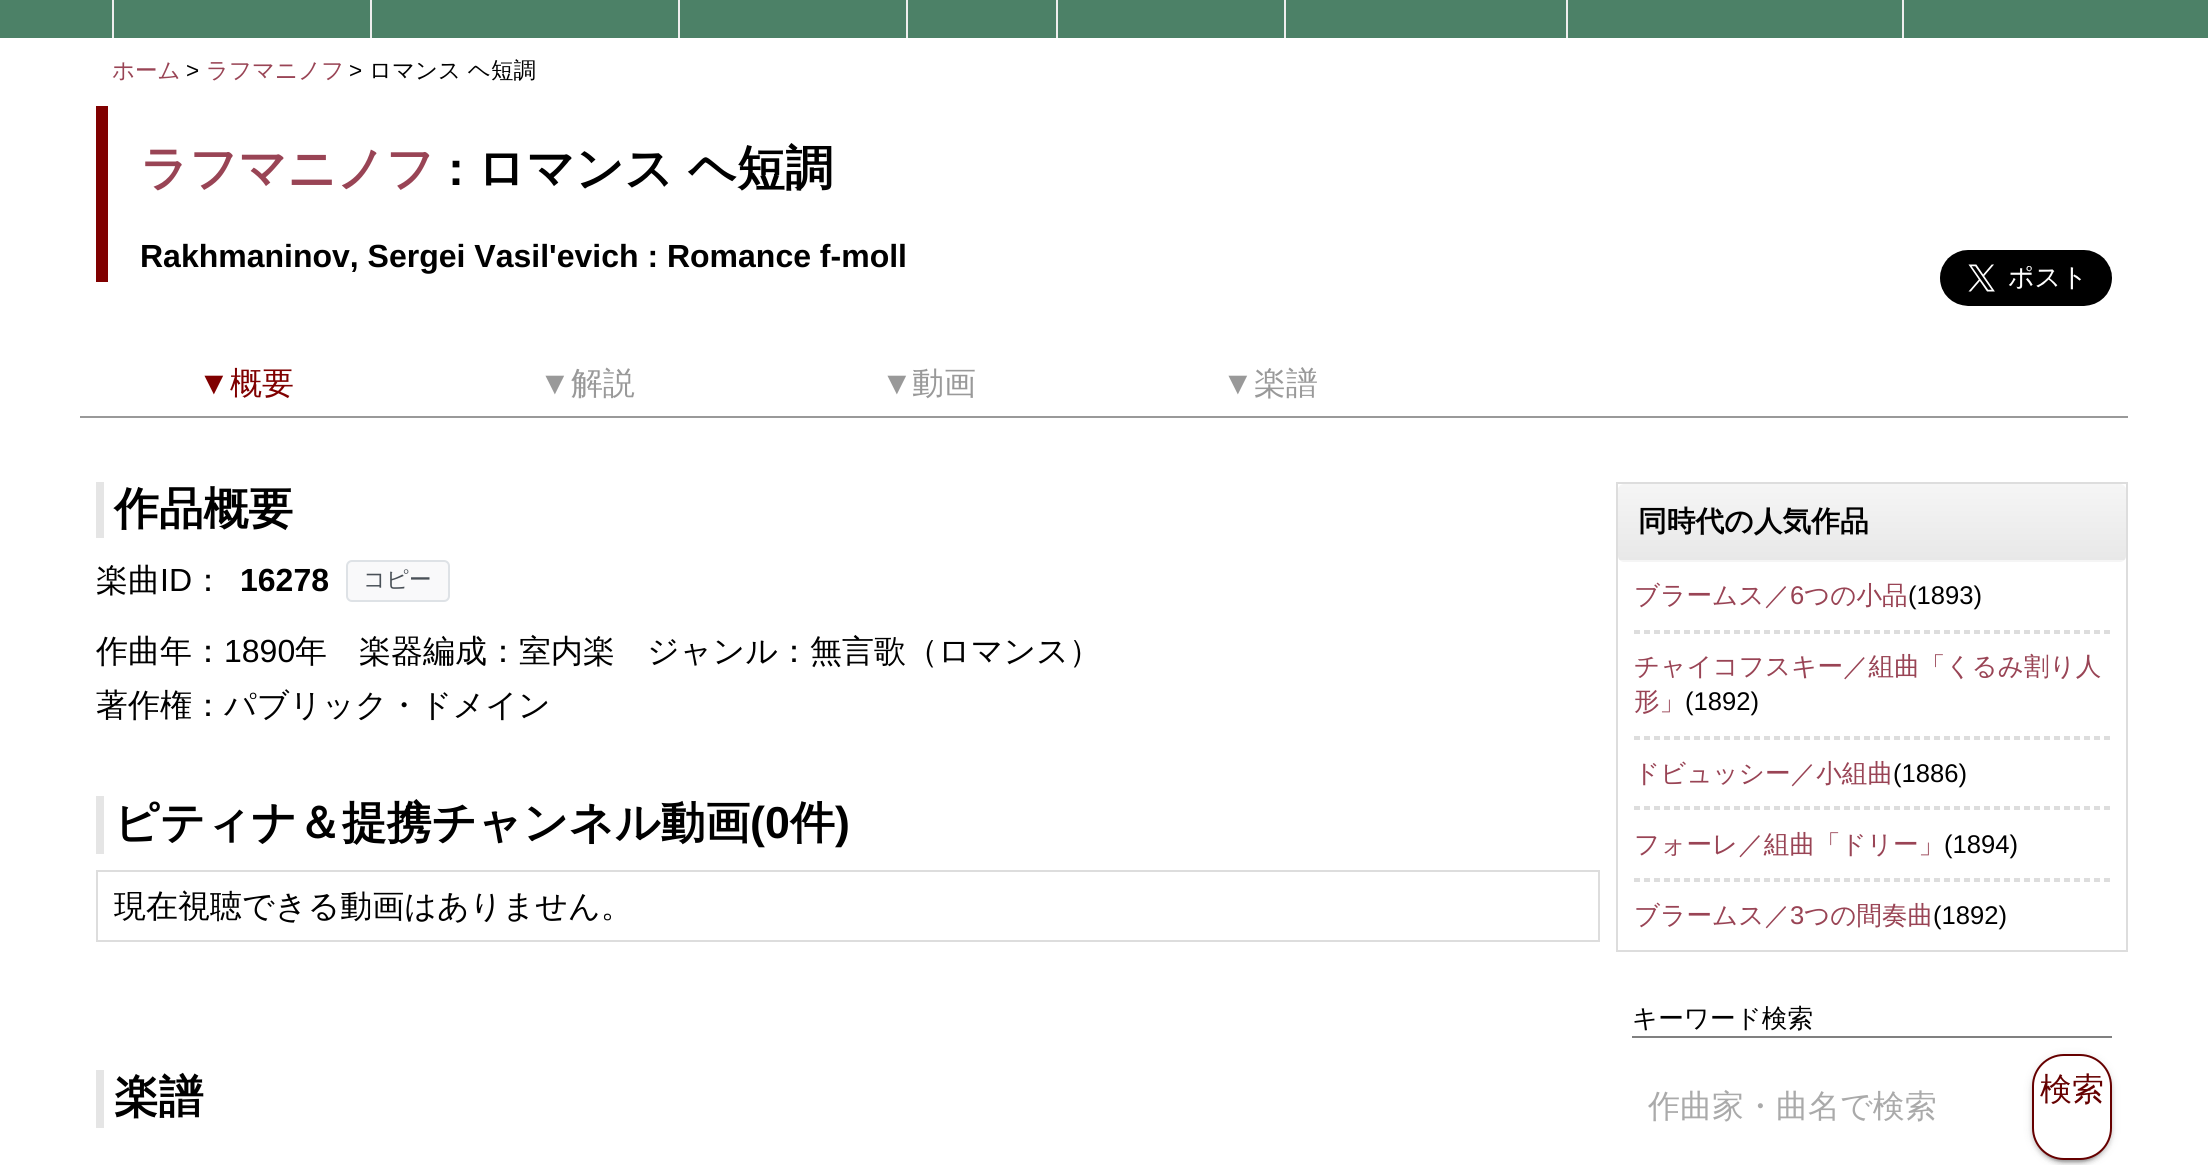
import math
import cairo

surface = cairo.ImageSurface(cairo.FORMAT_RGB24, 2208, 1165)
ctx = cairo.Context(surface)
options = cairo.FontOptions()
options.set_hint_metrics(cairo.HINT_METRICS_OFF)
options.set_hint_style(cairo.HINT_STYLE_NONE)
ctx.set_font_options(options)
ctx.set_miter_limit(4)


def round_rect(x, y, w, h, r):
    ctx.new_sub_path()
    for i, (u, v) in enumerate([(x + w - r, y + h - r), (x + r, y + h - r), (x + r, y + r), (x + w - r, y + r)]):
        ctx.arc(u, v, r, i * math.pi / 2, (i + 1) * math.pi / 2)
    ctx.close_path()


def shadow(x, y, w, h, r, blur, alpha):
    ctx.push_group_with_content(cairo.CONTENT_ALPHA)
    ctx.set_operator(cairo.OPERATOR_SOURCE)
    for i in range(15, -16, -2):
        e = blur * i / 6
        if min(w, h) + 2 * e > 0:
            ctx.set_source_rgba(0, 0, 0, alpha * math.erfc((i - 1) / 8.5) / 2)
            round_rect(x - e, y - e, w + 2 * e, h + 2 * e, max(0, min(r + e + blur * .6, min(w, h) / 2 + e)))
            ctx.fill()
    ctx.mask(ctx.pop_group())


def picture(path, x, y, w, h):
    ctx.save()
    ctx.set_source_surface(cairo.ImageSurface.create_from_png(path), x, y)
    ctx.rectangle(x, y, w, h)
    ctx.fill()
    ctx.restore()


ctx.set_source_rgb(1, 1, 1)
ctx.paint()
ctx.set_source_rgb(0.298, 0.506, 0.404)
ctx.rectangle(0, 0, 2208, 38)
ctx.fill()
ctx.set_source_rgb(0.933, 0.933, 0.933)
ctx.rectangle(112, 0, 2, 38)
ctx.fill()
ctx.rectangle(370, 0, 2, 38)
ctx.fill()
ctx.rectangle(678, 0, 2, 38)
ctx.fill()
ctx.rectangle(906, 0, 2, 38)
ctx.fill()
ctx.rectangle(1056, 0, 2, 38)
ctx.fill()
ctx.rectangle(1284, 0, 2, 38)
ctx.fill()
ctx.rectangle(1566, 0, 2, 38)
ctx.fill()
ctx.rectangle(1902, 0, 2, 38)
ctx.fill()
ctx.select_font_face("WenQuanYi Zen Hei Medium")
ctx.set_font_size(22.5)
ctx.set_source_rgb(0.6, 0.267, 0.333)
ctx.move_to(112, 78)
ctx.show_text("ホーム")
ctx.select_font_face("Liberation Sans")
ctx.set_source_rgb(0, 0, 0)
ctx.move_to(186, 78)
ctx.show_text(">")
ctx.select_font_face("WenQuanYi Zen Hei Medium")
ctx.set_source_rgb(0.6, 0.267, 0.333)
ctx.move_to(206, 78)
ctx.show_text("ラフマニノフ")
ctx.select_font_face("Liberation Sans")
ctx.set_source_rgb(0, 0, 0)
ctx.move_to(349, 78)
ctx.show_text(">")
ctx.select_font_face("WenQuanYi Zen Hei Medium")
ctx.move_to(369, 78)
ctx.show_text("ロマンス ヘ短調")
ctx.set_source_rgb(0.502, 0, 0)
ctx.rectangle(96, 106, 12, 176)
ctx.fill()
ctx.select_font_face("WenQuanYi Zen Hei", cairo.FONT_SLANT_NORMAL, cairo.FONT_WEIGHT_BOLD)
ctx.set_font_size(48)
ctx.set_source_rgb(0.6, 0.267, 0.333)
ctx.move_to(140, 185)
ctx.show_text("ラフマニノフ")
ctx.select_font_face("Liberation Sans", cairo.FONT_SLANT_NORMAL, cairo.FONT_WEIGHT_BOLD)
ctx.set_source_rgb(0, 0, 0)
ctx.move_to(448, 185)
ctx.show_text(":")
ctx.select_font_face("WenQuanYi Zen Hei", cairo.FONT_SLANT_NORMAL, cairo.FONT_WEIGHT_BOLD)
ctx.move_to(477, 185)
ctx.show_text("ロマンス ヘ短調")
ctx.select_font_face("Liberation Sans", cairo.FONT_SLANT_NORMAL, cairo.FONT_WEIGHT_BOLD)
ctx.set_font_size(32)
ctx.move_to(140, 267)
ctx.show_text("Rakhmaninov, Sergei Vasil'evich : Romance f-moll")
picture("img1.png", 1940, 250, 172, 56)
ctx.set_source_rgb(0.6, 0.6, 0.6)
ctx.rectangle(80, 416, 2048, 2)
ctx.fill()
ctx.select_font_face("Liberation Sans")
ctx.set_source_rgb(0.502, 0, 0)
ctx.move_to(198, 394)
ctx.show_text("▼")
ctx.select_font_face("WenQuanYi Zen Hei Medium")
ctx.move_to(230, 394)
ctx.show_text("概要")
ctx.select_font_face("Liberation Sans")
ctx.set_source_rgb(0.6, 0.6, 0.6)
ctx.move_to(539, 394)
ctx.show_text("▼")
ctx.select_font_face("WenQuanYi Zen Hei Medium")
ctx.move_to(571, 394)
ctx.show_text("解説")
ctx.select_font_face("Liberation Sans")
ctx.move_to(881, 394)
ctx.show_text("▼")
ctx.select_font_face("WenQuanYi Zen Hei Medium")
ctx.move_to(912, 394)
ctx.show_text("動画")
ctx.select_font_face("Liberation Sans")
ctx.move_to(1222, 394)
ctx.show_text("▼")
ctx.select_font_face("WenQuanYi Zen Hei Medium")
ctx.move_to(1254, 394)
ctx.show_text("楽譜")
ctx.set_source_rgb(0.898, 0.898, 0.898)
ctx.rectangle(96, 482, 8, 56)
ctx.fill()
ctx.select_font_face("WenQuanYi Zen Hei", cairo.FONT_SLANT_NORMAL, cairo.FONT_WEIGHT_BOLD)
ctx.set_font_size(44.75)
ctx.set_source_rgb(0, 0, 0)
ctx.move_to(114, 524)
ctx.show_text("作品概要")
ctx.select_font_face("WenQuanYi Zen Hei Medium")
ctx.set_font_size(32)
ctx.move_to(96, 591)
ctx.show_text("楽曲")
ctx.select_font_face("Liberation Sans")
ctx.move_to(160, 591)
ctx.show_text("ID")
ctx.select_font_face("WenQuanYi Zen Hei Medium")
ctx.move_to(192, 591)
ctx.show_text("：")
ctx.select_font_face("Liberation Sans", cairo.FONT_SLANT_NORMAL, cairo.FONT_WEIGHT_BOLD)
ctx.move_to(240, 591)
ctx.show_text("16278")
ctx.set_source_rgb(0.973, 0.976, 0.98)
round_rect(347, 561, 102, 40, 5)
ctx.fill_preserve()
ctx.set_source_rgb(0.871, 0.886, 0.902)
ctx.stroke()
ctx.select_font_face("WenQuanYi Zen Hei Medium")
ctx.set_font_size(22.5)
ctx.set_source_rgb(0.286, 0.314, 0.341)
ctx.move_to(363, 587)
ctx.show_text("コピー")
ctx.set_font_size(32)
ctx.set_source_rgb(0, 0, 0)
ctx.move_to(96, 662)
ctx.show_text("作曲年：")
ctx.select_font_face("Liberation Sans")
ctx.move_to(224, 662)
ctx.show_text("1890")
ctx.select_font_face("WenQuanYi Zen Hei Medium")
ctx.move_to(295, 662)
ctx.show_text("年")
ctx.move_to(359, 662)
ctx.show_text("楽器編成：室内楽")
ctx.move_to(647, 662)
ctx.show_text("ジャンル：無言歌（ロマンス）")
ctx.move_to(96, 716)
ctx.show_text("著作権：パブリック・ドメイン")
ctx.set_source_rgb(0.898, 0.898, 0.898)
ctx.rectangle(96, 796, 8, 58)
ctx.fill()
ctx.select_font_face("WenQuanYi Zen Hei", cairo.FONT_SLANT_NORMAL, cairo.FONT_WEIGHT_BOLD)
ctx.set_font_size(44.75)
ctx.set_source_rgb(0, 0, 0)
ctx.move_to(114, 838)
ctx.show_text("ピティナ＆提携チャンネル動画")
ctx.select_font_face("Liberation Sans", cairo.FONT_SLANT_NORMAL, cairo.FONT_WEIGHT_BOLD)
ctx.move_to(750, 838)
ctx.show_text("(0")
ctx.select_font_face("WenQuanYi Zen Hei", cairo.FONT_SLANT_NORMAL, cairo.FONT_WEIGHT_BOLD)
ctx.move_to(790, 838)
ctx.show_text("件")
ctx.select_font_face("Liberation Sans", cairo.FONT_SLANT_NORMAL, cairo.FONT_WEIGHT_BOLD)
ctx.move_to(835, 838)
ctx.show_text(")")
ctx.rectangle(97, 871, 1502, 70)
ctx.set_source_rgb(0.867, 0.867, 0.867)
ctx.stroke()
ctx.select_font_face("WenQuanYi Zen Hei Medium")
ctx.set_font_size(32)
ctx.set_source_rgb(0, 0, 0)
ctx.move_to(114, 917)
ctx.show_text("現在視聴できる動画はありません。")
ctx.set_source_rgb(0.898, 0.898, 0.898)
ctx.rectangle(96, 1070, 8, 58)
ctx.fill()
ctx.select_font_face("WenQuanYi Zen Hei", cairo.FONT_SLANT_NORMAL, cairo.FONT_WEIGHT_BOLD)
ctx.set_font_size(44.75)
ctx.set_source_rgb(0, 0, 0)
ctx.move_to(114, 1112)
ctx.show_text("楽譜")
ctx.rectangle(1617, 483, 510, 468)
ctx.set_source_rgb(0.867, 0.867, 0.867)
ctx.stroke()
ctx.save()
round_rect(1618, 484, 508, 78, 6)
ctx.clip()
gradient = cairo.LinearGradient(1872, 484, 1872, 560)
gradient.add_color_stop_rgba(0, 0.961, 0.961, 0.961, 1)
gradient.add_color_stop_rgba(1, 0.91, 0.91, 0.91, 1)
ctx.set_source(gradient)
ctx.new_path()
ctx.move_to(1624, 484)
ctx.line_to(2120, 484)
ctx.curve_to(2123.5, 484, 2126, 486.5, 2126, 490)
ctx.line_to(2126, 560)
ctx.line_to(1618, 560)
ctx.line_to(1618, 490)
ctx.curve_to(1618, 486.5, 1620.5, 484, 1624, 484)
ctx.close_path()
ctx.fill()
gradient = cairo.LinearGradient(1872, 560, 1872, 636)
gradient.add_color_stop_rgba(0, 0.961, 0.961, 0.961, 1)
gradient.add_color_stop_rgba(1, 0.91, 0.91, 0.91, 1)
ctx.set_source(gradient)
ctx.rectangle(1618, 560, 508, 2)
ctx.fill()
ctx.restore()
ctx.set_font_size(28.75)
ctx.set_source_rgb(0, 0, 0)
ctx.move_to(1638, 531)
ctx.show_text("同時代の人気作品")
ctx.select_font_face("WenQuanYi Zen Hei Medium")
ctx.set_font_size(25.6)
ctx.set_source_rgb(0.6, 0.267, 0.333)
ctx.move_to(1634, 604)
ctx.show_text("ブラームス／")
ctx.select_font_face("Liberation Sans")
ctx.move_to(1790, 604)
ctx.show_text("6")
ctx.select_font_face("WenQuanYi Zen Hei Medium")
ctx.move_to(1804, 604)
ctx.show_text("つの小品")
ctx.select_font_face("Liberation Sans")
ctx.set_source_rgb(0, 0, 0)
ctx.move_to(1908, 604)
ctx.show_text("(1893)")
ctx.new_path()
ctx.move_to(1634, 631)
ctx.line_to(2110, 631)
ctx.set_source_rgb(0.867, 0.867, 0.867)
ctx.set_dash([6, 4])
ctx.stroke()
ctx.rectangle(2108, 630, 2, 4)
ctx.fill()
ctx.new_path()
ctx.move_to(1634, 633)
ctx.line_to(2110, 633)
ctx.stroke()
ctx.select_font_face("WenQuanYi Zen Hei Medium")
ctx.set_source_rgb(0.6, 0.267, 0.333)
ctx.move_to(1634, 675)
ctx.show_text("チャイコフスキー／組曲「くるみ割り人")
ctx.move_to(1634, 710)
ctx.show_text("形」")
ctx.select_font_face("Liberation Sans")
ctx.set_source_rgb(0, 0, 0)
ctx.move_to(1685, 710)
ctx.show_text("(1892)")
ctx.new_path()
ctx.move_to(1634, 737)
ctx.line_to(2110, 737)
ctx.set_source_rgb(0.867, 0.867, 0.867)
ctx.stroke()
ctx.rectangle(2108, 736, 2, 4)
ctx.fill()
ctx.new_path()
ctx.move_to(1634, 739)
ctx.line_to(2110, 739)
ctx.stroke()
ctx.select_font_face("WenQuanYi Zen Hei Medium")
ctx.set_source_rgb(0.6, 0.267, 0.333)
ctx.move_to(1634, 782)
ctx.show_text("ドビュッシー／小組曲")
ctx.select_font_face("Liberation Sans")
ctx.set_source_rgb(0, 0, 0)
ctx.move_to(1893, 782)
ctx.show_text("(1886)")
ctx.new_path()
ctx.move_to(1634, 807)
ctx.line_to(2110, 807)
ctx.set_source_rgb(0.867, 0.867, 0.867)
ctx.stroke()
ctx.rectangle(2108, 806, 2, 4)
ctx.fill()
ctx.new_path()
ctx.move_to(1634, 809)
ctx.line_to(2110, 809)
ctx.stroke()
ctx.select_font_face("WenQuanYi Zen Hei Medium")
ctx.set_source_rgb(0.6, 0.267, 0.333)
ctx.move_to(1634, 853)
ctx.show_text("フォーレ／組曲「ドリー」")
ctx.select_font_face("Liberation Sans")
ctx.set_source_rgb(0, 0, 0)
ctx.move_to(1944, 853)
ctx.show_text("(1894)")
ctx.new_path()
ctx.move_to(1634, 879)
ctx.line_to(2110, 879)
ctx.set_source_rgb(0.867, 0.867, 0.867)
ctx.stroke()
ctx.rectangle(2108, 878, 2, 4)
ctx.fill()
ctx.new_path()
ctx.move_to(1634, 881)
ctx.line_to(2110, 881)
ctx.stroke()
ctx.select_font_face("WenQuanYi Zen Hei Medium")
ctx.set_source_rgb(0.6, 0.267, 0.333)
ctx.move_to(1634, 924)
ctx.show_text("ブラームス／")
ctx.select_font_face("Liberation Sans")
ctx.move_to(1790, 924)
ctx.show_text("3")
ctx.select_font_face("WenQuanYi Zen Hei Medium")
ctx.move_to(1804, 924)
ctx.show_text("つの間奏曲")
ctx.select_font_face("Liberation Sans")
ctx.set_source_rgb(0, 0, 0)
ctx.move_to(1933, 924)
ctx.show_text("(1892)")
ctx.set_source_rgb(0.502, 0.502, 0.502)
ctx.rectangle(1632, 1036, 480, 2)
ctx.fill()
ctx.select_font_face("WenQuanYi Zen Hei Medium")
ctx.set_source_rgb(0, 0, 0)
ctx.move_to(1632, 1027)
ctx.show_text("キーワード検索")
ctx.set_font_size(32)
ctx.set_source_rgb(0.667, 0.667, 0.667)
ctx.move_to(1648, 1117)
ctx.show_text("作曲家・曲名で検索")
ctx.set_source_rgb(0, 0, 0)
shadow(2036, 1064, 72, 98, 28, 1, 0.2)
shadow(2032, 1056, 80, 106, 32, 5, 0.12)
shadow(2032, 1058, 80, 106, 32, 2, 0.14)
ctx.set_source_rgb(1, 1, 1)
round_rect(2033, 1055, 78, 104, 31)
ctx.fill_preserve()
ctx.set_source_rgb(0.4, 0, 0)
ctx.set_dash([])
ctx.stroke()
ctx.move_to(2040, 1100)
ctx.show_text("検索")
surface.write_to_png("page.png")
